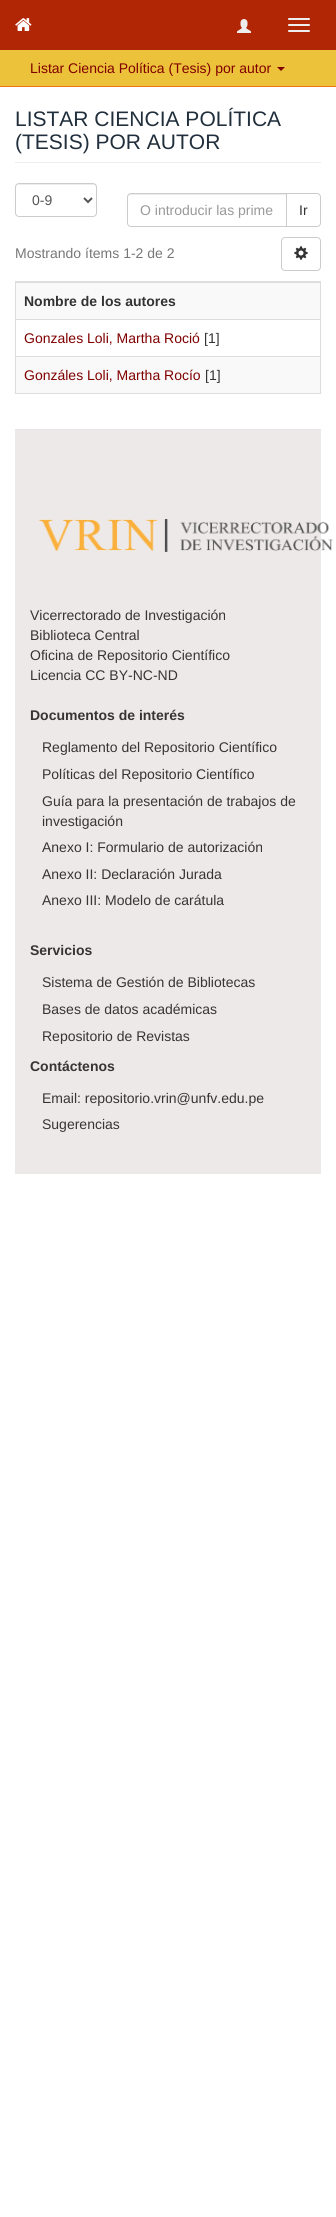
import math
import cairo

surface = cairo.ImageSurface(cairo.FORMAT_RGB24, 336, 2217)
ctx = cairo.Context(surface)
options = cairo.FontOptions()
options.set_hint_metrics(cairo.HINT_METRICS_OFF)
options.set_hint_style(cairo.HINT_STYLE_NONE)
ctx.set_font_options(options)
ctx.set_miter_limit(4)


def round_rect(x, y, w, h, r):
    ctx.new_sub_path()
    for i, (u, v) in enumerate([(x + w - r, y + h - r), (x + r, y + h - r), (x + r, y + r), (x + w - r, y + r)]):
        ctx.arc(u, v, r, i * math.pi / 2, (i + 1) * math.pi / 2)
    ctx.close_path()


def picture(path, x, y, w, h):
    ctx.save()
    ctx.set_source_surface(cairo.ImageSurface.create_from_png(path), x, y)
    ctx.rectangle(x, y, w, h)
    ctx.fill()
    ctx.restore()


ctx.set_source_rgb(1, 1, 1)
ctx.paint()
ctx.set_source_rgb(0.694, 0.149, 0.016)
ctx.rectangle(0, 0, 336, 50)
ctx.fill()
picture("img1.png", 15, 18, 17, 13)
picture("img2.png", 237, 19, 14, 14)
ctx.set_source_rgb(0.933, 0.933, 0.933)
round_rect(288, 18, 22, 2, 1)
ctx.fill()
round_rect(288, 24, 22, 2, 1)
ctx.fill()
round_rect(288, 30, 22, 2, 1)
ctx.fill()
ctx.set_source_rgb(0.922, 0.761, 0.227)
ctx.rectangle(0, 50, 336, 36)
ctx.fill()
ctx.set_source_rgb(0.941, 0.463, 0.075)
ctx.rectangle(0, 86, 336, 1)
ctx.fill()
ctx.select_font_face("Liberation Sans")
ctx.set_font_size(14)
ctx.set_source_rgb(0.502, 0, 0)
ctx.move_to(30, 73)
ctx.show_text("Listar Ciencia Política (Tesis) por autor")
ctx.new_path()
ctx.move_to(277, 67)
ctx.line_to(285, 67)
ctx.line_to(281, 71)
ctx.close_path()
ctx.fill()
ctx.set_source_rgb(0.933, 0.933, 0.933)
ctx.rectangle(15, 162, 306, 1)
ctx.fill()
ctx.set_font_size(21)
ctx.set_source_rgb(0.129, 0.184, 0.235)
ctx.move_to(15, 126)
ctx.show_text("LISTAR CIENCIA POLÍTICA")
ctx.move_to(15, 149)
ctx.show_text("(TESIS) POR AUTOR")
ctx.set_source_rgb(0.925, 0.925, 0.925)
ctx.new_path()
ctx.move_to(19, 185)
ctx.line_to(93, 185)
ctx.curve_to(95, 185, 96, 186, 96, 188)
ctx.curve_to(96, 181, 85, 184, 81, 184)
ctx.line_to(31, 184)
ctx.curve_to(27, 184, 16, 181, 16, 188)
ctx.curve_to(16, 186, 17, 185, 19, 185)
ctx.close_path()
ctx.fill()
round_rect(15.5, 183.5, 81, 33, 3.5)
ctx.set_source_rgb(0.8, 0.8, 0.8)
ctx.set_line_width(1)
ctx.stroke()
ctx.new_path()
ctx.move_to(84, 198)
ctx.line_to(88, 202)
ctx.line_to(92, 198)
ctx.set_source_rgb(0.333, 0.333, 0.333)
ctx.set_line_width(2)
ctx.stroke()
ctx.set_font_size(14)
ctx.move_to(32, 205)
ctx.show_text("0-9")
ctx.new_path()
ctx.move_to(286.5, 193.5)
ctx.line_to(317, 193.5)
ctx.curve_to(319, 193.5, 320.5, 195, 320.5, 197)
ctx.line_to(320.5, 223)
ctx.curve_to(320.5, 225, 319, 226.5, 317, 226.5)
ctx.line_to(286.5, 226.5)
ctx.close_path()
ctx.set_source_rgb(0.8, 0.8, 0.8)
ctx.set_line_width(1)
ctx.stroke()
ctx.set_source_rgb(1, 1, 1)
ctx.new_path()
ctx.move_to(131, 193)
ctx.line_to(287, 193)
ctx.line_to(287, 227)
ctx.line_to(131, 227)
ctx.curve_to(129, 227, 127, 225, 127, 223)
ctx.line_to(127, 197)
ctx.curve_to(127, 195, 129, 193, 131, 193)
ctx.close_path()
ctx.fill()
ctx.set_source_rgb(0.925, 0.925, 0.925)
ctx.new_path()
ctx.move_to(131, 195)
ctx.line_to(286, 195)
ctx.line_to(286, 194)
ctx.line_to(130, 194)
ctx.curve_to(128, 194, 128, 196, 128, 198)
ctx.curve_to(128, 196, 129, 195, 131, 195)
ctx.close_path()
ctx.fill()
ctx.new_path()
ctx.move_to(131, 193.5)
ctx.line_to(286.5, 193.5)
ctx.line_to(286.5, 226.5)
ctx.line_to(131, 226.5)
ctx.curve_to(129, 226.5, 127.5, 225, 127.5, 223)
ctx.line_to(127.5, 197)
ctx.curve_to(127.5, 195, 129, 193.5, 131, 193.5)
ctx.close_path()
ctx.set_source_rgb(0.8, 0.8, 0.8)
ctx.stroke()
ctx.set_source_rgb(0.6, 0.6, 0.6)
ctx.move_to(140, 215)
ctx.show_text("O introducir las prime")
ctx.set_source_rgb(0.2, 0.2, 0.2)
ctx.move_to(299, 215)
ctx.show_text("Ir")
ctx.set_source_rgb(0.467, 0.467, 0.467)
ctx.move_to(15, 258)
ctx.show_text("Mostrando ítems 1-2 de 2")
round_rect(281.5, 237.5, 39, 33, 3.5)
ctx.set_source_rgb(0.8, 0.8, 0.8)
ctx.stroke()
picture("img3.png", 294, 246, 14, 14)
ctx.rectangle(15.5, 281.5, 305, 112)
ctx.set_source_rgb(0.867, 0.867, 0.867)
ctx.stroke()
ctx.set_source_rgb(0.976, 0.976, 0.976)
ctx.rectangle(16, 283, 304, 36)
ctx.fill()
ctx.set_source_rgb(0.867, 0.867, 0.867)
ctx.rectangle(16, 282, 304, 1)
ctx.fill()
ctx.select_font_face("Liberation Sans", cairo.FONT_SLANT_NORMAL, cairo.FONT_WEIGHT_BOLD)
ctx.set_source_rgb(0.2, 0.2, 0.2)
ctx.move_to(24, 306)
ctx.show_text("Nombre de los autores")
ctx.set_source_rgb(0.867, 0.867, 0.867)
ctx.rectangle(16, 319, 304, 1)
ctx.fill()
ctx.select_font_face("Liberation Sans")
ctx.set_source_rgb(0.502, 0, 0)
ctx.move_to(24, 343)
ctx.show_text("Gonzales Loli, Martha Roció")
ctx.set_source_rgb(0.2, 0.2, 0.2)
ctx.move_to(204, 343)
ctx.show_text("[1]")
ctx.set_source_rgb(0.976, 0.976, 0.976)
ctx.rectangle(16, 357, 304, 36)
ctx.fill()
ctx.set_source_rgb(0.867, 0.867, 0.867)
ctx.rectangle(16, 356, 304, 1)
ctx.fill()
ctx.set_source_rgb(0.502, 0, 0)
ctx.move_to(24, 380)
ctx.show_text("Gonzáles Loli, Martha Rocío")
ctx.set_source_rgb(0.2, 0.2, 0.2)
ctx.move_to(205, 380)
ctx.show_text("[1]")
ctx.set_source_rgb(0.929, 0.914, 0.914)
ctx.rectangle(15, 430, 306, 744)
ctx.fill()
ctx.set_source_rgb(0.898, 0.898, 0.898)
ctx.rectangle(15, 429, 306, 1)
ctx.fill()
picture("img4.png", 38, 519, 295, 33)
ctx.set_source_rgb(0.224, 0.204, 0.204)
ctx.move_to(30, 620)
ctx.show_text("Vicerrectorado de Investigación")
ctx.move_to(30, 640)
ctx.show_text("Biblioteca Central")
ctx.move_to(30, 660)
ctx.show_text("Oficina de Repositorio Científico")
ctx.move_to(30, 680)
ctx.show_text("Licencia CC BY-NC-ND")
ctx.select_font_face("Liberation Sans", cairo.FONT_SLANT_NORMAL, cairo.FONT_WEIGHT_BOLD)
ctx.move_to(30, 720)
ctx.show_text("Documentos de interés")
ctx.select_font_face("Liberation Sans")
ctx.move_to(42, 752)
ctx.show_text("Reglamento del Repositorio Científico")
ctx.move_to(42, 779)
ctx.show_text("Políticas del Repositorio Científico")
ctx.move_to(42, 806)
ctx.show_text("Guía para la presentación de trabajos de")
ctx.move_to(42, 826)
ctx.show_text("investigación")
ctx.move_to(42, 852)
ctx.show_text("Anexo I: Formulario de autorización")
ctx.move_to(42, 879)
ctx.show_text("Anexo II: Declaración Jurada")
ctx.move_to(42, 905)
ctx.show_text("Anexo III: Modelo de carátula")
ctx.select_font_face("Liberation Sans", cairo.FONT_SLANT_NORMAL, cairo.FONT_WEIGHT_BOLD)
ctx.move_to(30, 955)
ctx.show_text("Servicios")
ctx.select_font_face("Liberation Sans")
ctx.move_to(42, 987)
ctx.show_text("Sistema de Gestión de Bibliotecas")
ctx.move_to(42, 1014)
ctx.show_text("Bases de datos académicas")
ctx.move_to(42, 1041)
ctx.show_text("Repositorio de Revistas")
ctx.select_font_face("Liberation Sans", cairo.FONT_SLANT_NORMAL, cairo.FONT_WEIGHT_BOLD)
ctx.move_to(30, 1071)
ctx.show_text("Contáctenos")
ctx.select_font_face("Liberation Sans")
ctx.move_to(42, 1103)
ctx.show_text("Email: repositorio.vrin@unfv.edu.pe")
ctx.move_to(42, 1129)
ctx.show_text("Sugerencias")
surface.write_to_png("page.png")
